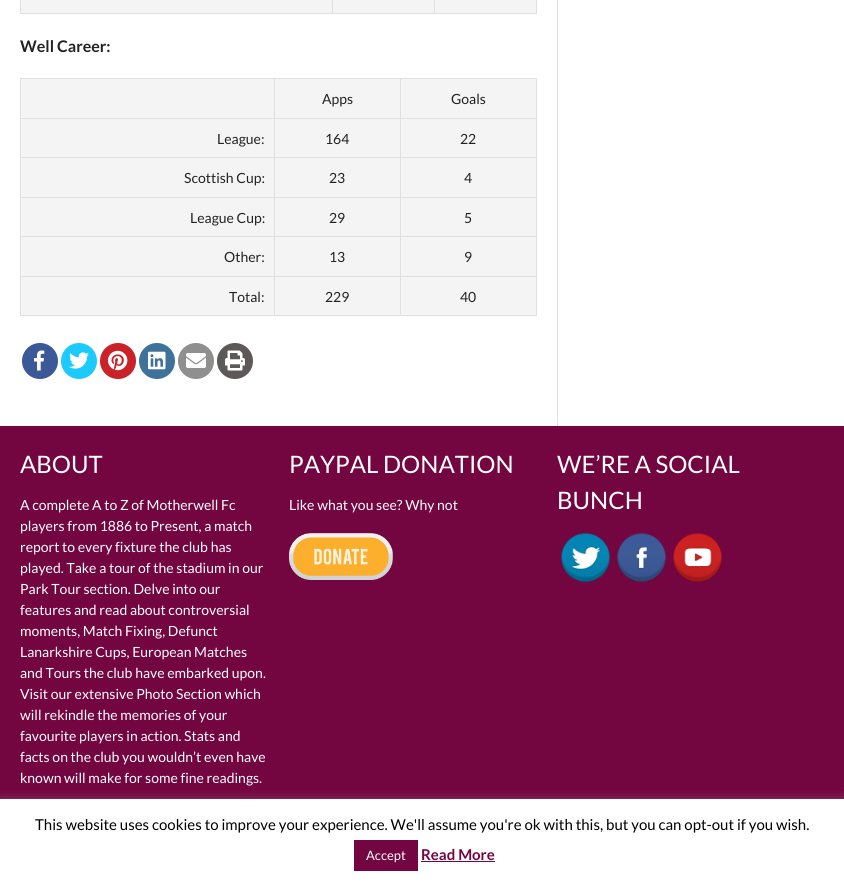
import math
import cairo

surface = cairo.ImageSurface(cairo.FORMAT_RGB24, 844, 883)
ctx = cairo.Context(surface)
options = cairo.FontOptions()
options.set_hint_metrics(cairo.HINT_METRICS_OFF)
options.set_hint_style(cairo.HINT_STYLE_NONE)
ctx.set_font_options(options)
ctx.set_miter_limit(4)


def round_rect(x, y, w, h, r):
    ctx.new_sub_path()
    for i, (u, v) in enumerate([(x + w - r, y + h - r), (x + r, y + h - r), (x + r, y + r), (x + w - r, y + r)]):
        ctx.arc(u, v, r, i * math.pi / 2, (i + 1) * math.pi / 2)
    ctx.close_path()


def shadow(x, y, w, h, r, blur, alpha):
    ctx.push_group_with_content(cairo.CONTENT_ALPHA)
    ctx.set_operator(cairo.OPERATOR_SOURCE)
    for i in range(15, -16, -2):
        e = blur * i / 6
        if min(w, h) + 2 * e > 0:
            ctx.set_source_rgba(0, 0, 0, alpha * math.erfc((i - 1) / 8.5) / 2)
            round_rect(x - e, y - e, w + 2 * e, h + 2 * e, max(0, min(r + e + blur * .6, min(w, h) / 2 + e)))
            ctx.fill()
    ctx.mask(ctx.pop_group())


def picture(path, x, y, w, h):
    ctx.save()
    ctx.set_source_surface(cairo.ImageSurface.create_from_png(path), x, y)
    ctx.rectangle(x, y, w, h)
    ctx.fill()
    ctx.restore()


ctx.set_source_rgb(1, 1, 1)
ctx.paint()
ctx.set_source_rgb(0.878, 0.878, 0.878)
ctx.rectangle(557, 0, 1, 426)
ctx.fill()
ctx.set_source_rgb(0.957, 0.957, 0.957)
ctx.rectangle(21, 0, 515, 13)
ctx.fill()
ctx.set_source_rgb(0.878, 0.878, 0.878)
ctx.rectangle(536, 0, 1, 14)
ctx.fill()
ctx.rectangle(20, 13, 517, 1)
ctx.fill()
ctx.rectangle(20, 0, 1, 14)
ctx.fill()
ctx.rectangle(332, 0, 1, 14)
ctx.fill()
ctx.rectangle(434, 0, 1, 14)
ctx.fill()
ctx.select_font_face("Lato", cairo.FONT_SLANT_NORMAL, cairo.FONT_WEIGHT_BOLD)
ctx.set_font_size(16)
ctx.set_source_rgb(0.133, 0.133, 0.133)
ctx.move_to(20, 52)
ctx.show_text("Well Career:")
ctx.set_source_rgb(0.957, 0.957, 0.957)
ctx.rectangle(21, 79, 515, 236)
ctx.fill()
ctx.set_source_rgb(0.878, 0.878, 0.878)
ctx.rectangle(20, 78, 517, 1)
ctx.fill()
ctx.rectangle(536, 78, 1, 238)
ctx.fill()
ctx.rectangle(20, 315, 517, 1)
ctx.fill()
ctx.rectangle(20, 78, 1, 238)
ctx.fill()
ctx.rectangle(400, 118, 137, 1)
ctx.fill()
ctx.rectangle(400, 157, 137, 1)
ctx.fill()
ctx.rectangle(400, 197, 137, 1)
ctx.fill()
ctx.rectangle(400, 236, 137, 1)
ctx.fill()
ctx.rectangle(400, 276, 137, 1)
ctx.fill()
ctx.rectangle(400, 276, 1, 40)
ctx.fill()
ctx.rectangle(274, 276, 127, 1)
ctx.fill()
ctx.rectangle(400, 236, 1, 41)
ctx.fill()
ctx.rectangle(274, 236, 127, 1)
ctx.fill()
ctx.rectangle(400, 197, 1, 40)
ctx.fill()
ctx.rectangle(274, 197, 127, 1)
ctx.fill()
ctx.rectangle(400, 157, 1, 41)
ctx.fill()
ctx.rectangle(274, 157, 127, 1)
ctx.fill()
ctx.rectangle(400, 118, 1, 40)
ctx.fill()
ctx.rectangle(274, 118, 127, 1)
ctx.fill()
ctx.rectangle(274, 276, 1, 40)
ctx.fill()
ctx.rectangle(20, 276, 255, 1)
ctx.fill()
ctx.rectangle(274, 236, 1, 41)
ctx.fill()
ctx.rectangle(20, 236, 255, 1)
ctx.fill()
ctx.rectangle(274, 197, 1, 40)
ctx.fill()
ctx.rectangle(20, 197, 255, 1)
ctx.fill()
ctx.rectangle(274, 157, 1, 41)
ctx.fill()
ctx.rectangle(20, 157, 255, 1)
ctx.fill()
ctx.rectangle(274, 118, 1, 40)
ctx.fill()
ctx.rectangle(20, 118, 255, 1)
ctx.fill()
ctx.rectangle(274, 78, 1, 41)
ctx.fill()
ctx.select_font_face("Lato")
ctx.set_font_size(14)
ctx.set_source_rgb(0.133, 0.133, 0.133)
ctx.move_to(322, 104)
ctx.show_text("Apps")
ctx.set_source_rgb(0.878, 0.878, 0.878)
ctx.rectangle(400, 78, 1, 41)
ctx.fill()
ctx.set_source_rgb(0.133, 0.133, 0.133)
ctx.move_to(451, 104)
ctx.show_text("Goals")
ctx.move_to(217, 144)
ctx.show_text("League:")
ctx.move_to(325, 144)
ctx.show_text("164")
ctx.move_to(460, 144)
ctx.show_text("22")
ctx.move_to(184, 183)
ctx.show_text("Scottish Cup:")
ctx.move_to(329, 183)
ctx.show_text("23")
ctx.move_to(464, 183)
ctx.show_text("4")
ctx.move_to(190, 223)
ctx.show_text("League Cup:")
ctx.move_to(329, 223)
ctx.show_text("29")
ctx.move_to(464, 223)
ctx.show_text("5")
ctx.move_to(224, 262)
ctx.show_text("Other:")
ctx.move_to(329, 262)
ctx.show_text("13")
ctx.move_to(464, 262)
ctx.show_text("9")
ctx.move_to(229, 302)
ctx.show_text("Total:")
ctx.move_to(325, 302)
ctx.show_text("229")
ctx.move_to(460, 302)
ctx.show_text("40")
ctx.set_source_rgb(0.231, 0.349, 0.596)
ctx.new_path()
ctx.arc(40, 361, 18, 0, 2 * math.pi)
ctx.fill()
picture("img1.png", 34, 350, 11, 21)
ctx.set_source_rgb(0.114, 0.792, 1)
ctx.arc(79, 361, 18, 0, 2 * math.pi)
ctx.fill()
picture("img2.png", 69, 352, 20, 17)
ctx.set_source_rgb(0.788, 0.133, 0.157)
ctx.arc(118, 361, 18, 0, 2 * math.pi)
ctx.fill()
picture("img3.png", 108, 350, 20, 21)
ctx.set_source_rgb(0.247, 0.447, 0.608)
ctx.arc(157, 361, 18, 0, 2 * math.pi)
ctx.fill()
picture("img4.png", 148, 351, 18, 19)
ctx.set_source_rgb(0.561, 0.561, 0.561)
ctx.arc(196, 361, 18, 0, 2 * math.pi)
ctx.fill()
picture("img5.png", 186, 353, 20, 15)
ctx.set_source_rgb(0.369, 0.349, 0.349)
ctx.arc(235, 361, 18, 0, 2 * math.pi)
ctx.fill()
picture("img6.png", 225, 350, 20, 21)
ctx.set_source_rgb(0.451, 0.02, 0.251)
ctx.rectangle(0, 426, 844, 373)
ctx.fill()
ctx.set_font_size(24)
ctx.set_source_rgb(1, 1, 1)
ctx.move_to(20, 473)
ctx.show_text("ABOUT")
ctx.set_font_size(14)
ctx.move_to(20, 510)
ctx.show_text("A complete A to Z of Motherwell Fc")
ctx.move_to(20, 531)
ctx.show_text("players from 1886 to Present, a match")
ctx.move_to(20, 552)
ctx.show_text("report to every fixture the club has")
ctx.move_to(20, 573)
ctx.show_text("played. Take a tour of the stadium in our")
ctx.move_to(20, 594)
ctx.show_text("Park Tour section. Delve into our")
ctx.move_to(20, 615)
ctx.show_text("features and read about controversial")
ctx.move_to(20, 636)
ctx.show_text("moments, Match Fixing, Defunct")
ctx.move_to(20, 657)
ctx.show_text("Lanarkshire Cups, European Matches")
ctx.move_to(20, 678)
ctx.show_text("and Tours the club have embarked upon.")
ctx.move_to(20, 699)
ctx.show_text("Visit our extensive Photo Section which")
ctx.move_to(20, 720)
ctx.show_text("will rekindle the memories of your")
ctx.move_to(20, 741)
ctx.show_text("favourite players in action. Stats and")
ctx.move_to(20, 762)
ctx.show_text("facts on the club you wouldn’t even have")
ctx.move_to(20, 783)
ctx.show_text("known will make for some fine readings.")
ctx.set_font_size(24)
ctx.move_to(289, 473)
ctx.show_text("PAYPAL DONATION")
ctx.set_font_size(14)
ctx.move_to(289, 510)
ctx.show_text("Like what you see? Why not")
picture("img7.png", 289, 533, 104, 47)
ctx.set_font_size(24)
ctx.move_to(557, 473)
ctx.show_text("WE’RE A SOCIAL")
ctx.move_to(557, 509)
ctx.show_text("BUNCH")
picture("img8.png", 561, 533, 49, 49)
picture("img9.png", 617, 533, 49, 49)
picture("img10.png", 673, 533, 49, 49)
ctx.set_source_rgb(0.675, 0.671, 0.671)
shadow(0, 798, 844, 84, 0, 5, 0.3)
ctx.set_source_rgb(1, 1, 1)
ctx.rectangle(0, 799, 844, 84)
ctx.fill()
ctx.set_font_size(15)
ctx.set_source_rgb(0, 0, 0)
ctx.move_to(35, 830)
ctx.show_text("This website uses cookies to improve your experience. We'll assume you're ok with this, but you can opt-out if you wish.")
ctx.set_source_rgb(0.451, 0.02, 0.251)
ctx.rectangle(354, 840, 64, 31)
ctx.fill()
ctx.set_font_size(13)
ctx.set_source_rgb(1, 1, 1)
ctx.move_to(366, 860)
ctx.show_text("Accept")
ctx.select_font_face("Lato", cairo.FONT_SLANT_NORMAL, cairo.FONT_WEIGHT_BOLD)
ctx.set_font_size(15)
ctx.set_source_rgb(0.451, 0.02, 0.251)
ctx.move_to(421, 860)
ctx.show_text("Read More")
ctx.rectangle(421, 861, 74, 1)
ctx.fill()
surface.write_to_png("page.png")
